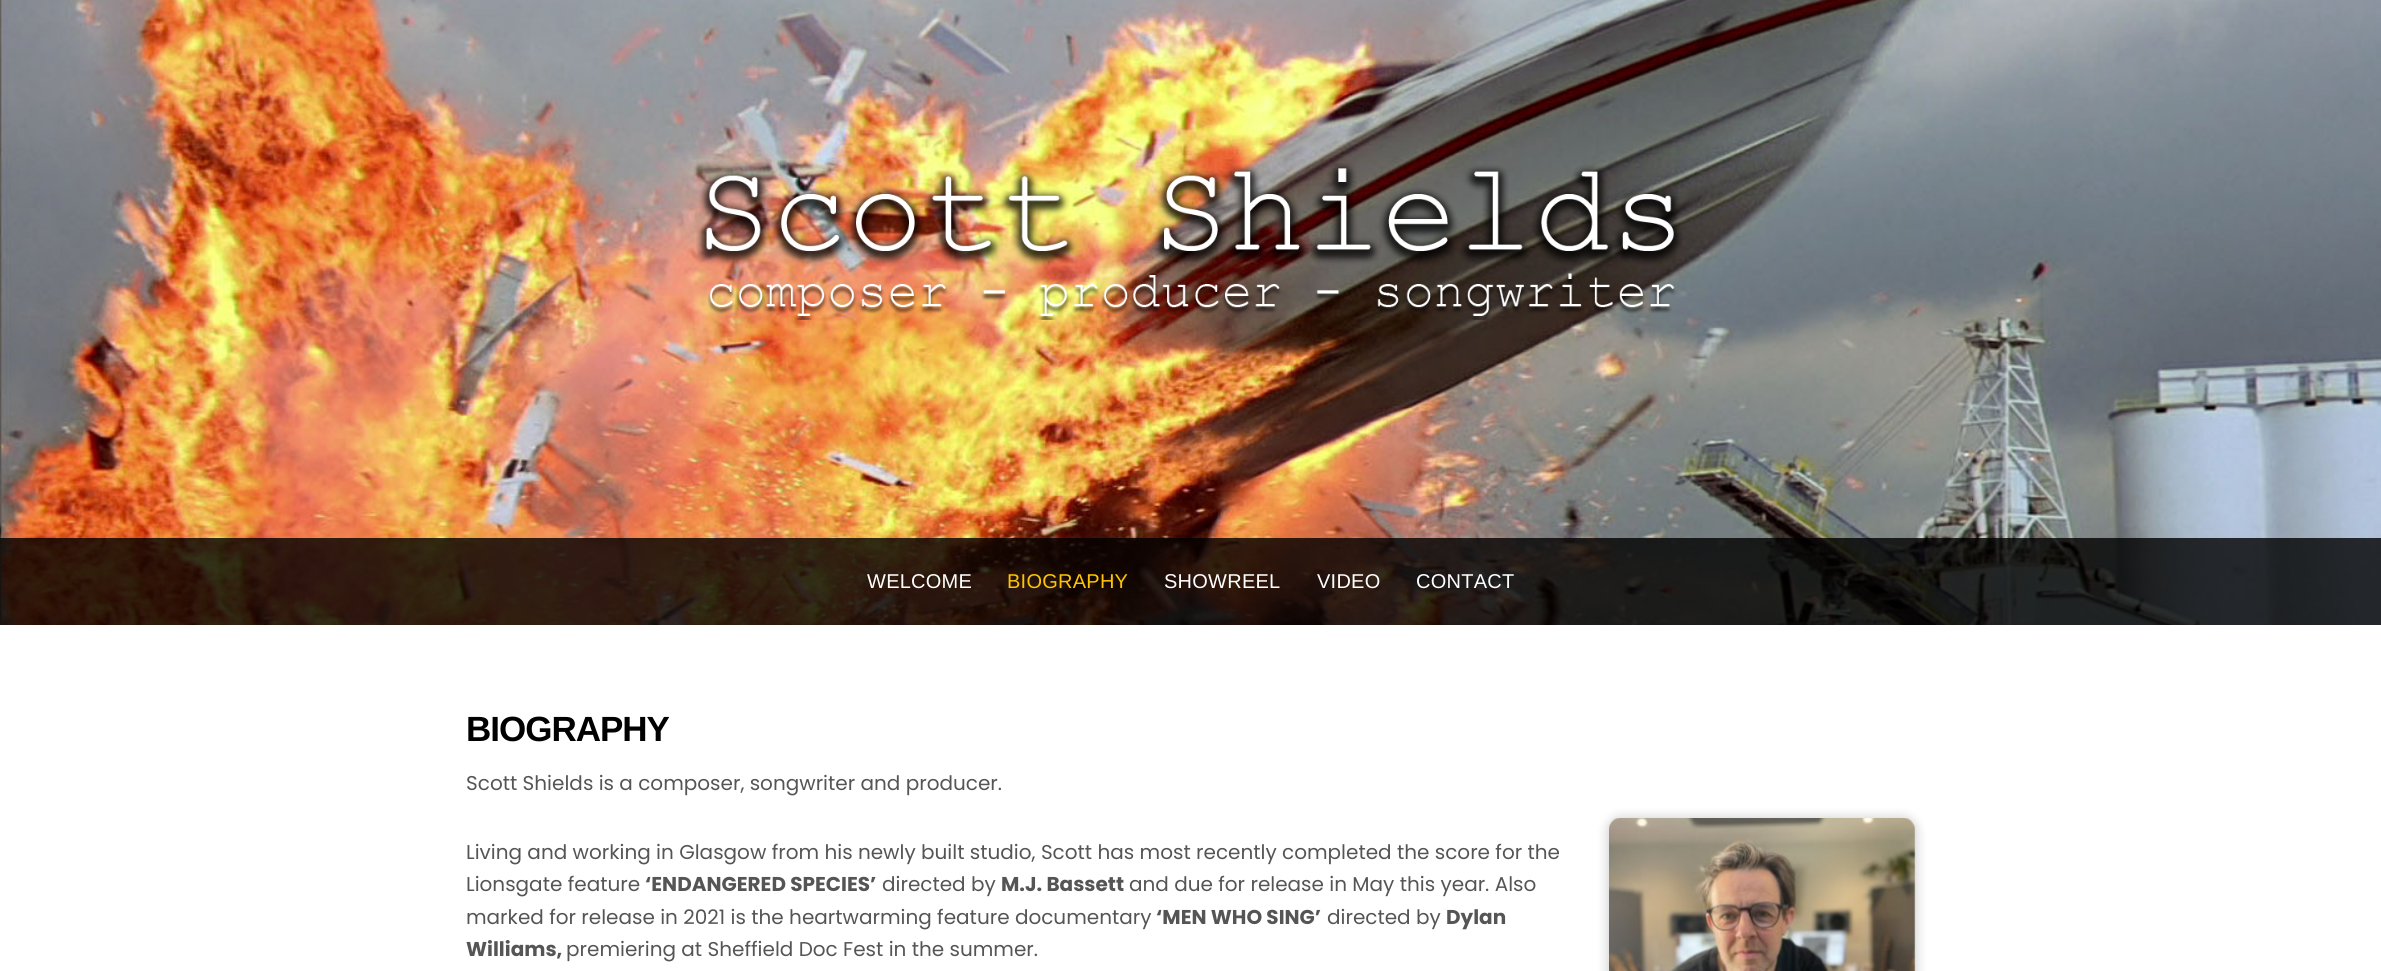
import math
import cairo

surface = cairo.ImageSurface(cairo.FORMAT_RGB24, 2381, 971)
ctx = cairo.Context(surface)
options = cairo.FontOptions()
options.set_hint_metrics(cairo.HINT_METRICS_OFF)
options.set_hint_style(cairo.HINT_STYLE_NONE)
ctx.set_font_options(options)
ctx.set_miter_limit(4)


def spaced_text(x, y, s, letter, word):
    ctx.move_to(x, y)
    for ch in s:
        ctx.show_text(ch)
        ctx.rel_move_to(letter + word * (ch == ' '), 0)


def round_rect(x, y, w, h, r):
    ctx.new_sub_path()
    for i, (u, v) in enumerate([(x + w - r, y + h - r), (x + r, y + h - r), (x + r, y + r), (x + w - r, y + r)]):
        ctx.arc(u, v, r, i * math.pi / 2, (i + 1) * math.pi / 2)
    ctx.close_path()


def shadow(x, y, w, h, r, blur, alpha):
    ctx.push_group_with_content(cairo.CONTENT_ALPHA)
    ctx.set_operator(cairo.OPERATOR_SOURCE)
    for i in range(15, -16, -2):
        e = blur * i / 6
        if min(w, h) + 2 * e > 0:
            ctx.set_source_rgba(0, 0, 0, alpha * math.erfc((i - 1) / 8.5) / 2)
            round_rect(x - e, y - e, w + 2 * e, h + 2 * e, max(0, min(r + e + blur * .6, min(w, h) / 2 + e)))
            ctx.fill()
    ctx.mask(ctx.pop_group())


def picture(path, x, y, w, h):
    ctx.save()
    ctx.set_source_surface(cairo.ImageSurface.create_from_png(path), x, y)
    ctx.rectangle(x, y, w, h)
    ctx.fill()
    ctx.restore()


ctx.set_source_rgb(1, 1, 1)
ctx.paint()
picture("img1.png", 0, 0, 2381, 625)
picture("img2.png", 696, 163, 987, 157)
ctx.set_source_rgba(0, 0, 0, 0.8)
ctx.rectangle(0, 538, 2381, 87)
ctx.fill()
ctx.select_font_face("Liberation Sans")
ctx.set_font_size(20)
ctx.set_source_rgb(1, 1, 1)
spaced_text(867, 588, "WELCOME", 0.25, 0)
ctx.set_source_rgb(1, 0.769, 0.012)
spaced_text(1007, 588, "BIOGRAPHY", 0.25, 0)
ctx.set_source_rgb(1, 1, 1)
spaced_text(1164, 588, "SHOWREEL", 0.25, 0)
spaced_text(1317, 588, "VIDEO", 0.25, 0)
spaced_text(1416, 588, "CONTACT", 0.25, 0)
ctx.select_font_face("Liberation Sans", cairo.FONT_SLANT_NORMAL, cairo.FONT_WEIGHT_BOLD)
ctx.set_font_size(35)
ctx.set_source_rgb(0, 0, 0)
spaced_text(466, 741, "BIOGRAPHY", -1, 0)
ctx.select_font_face("Poppins")
ctx.set_font_size(20)
ctx.set_source_rgb(0.333, 0.333, 0.333)
ctx.move_to(466, 790)
ctx.show_text("Scott Shields is a composer, songwriter and producer.")
ctx.move_to(466, 859)
ctx.show_text("Living and working in Glasgow from his newly built studio, Scott has most recently completed the score for the")
ctx.move_to(466, 891)
ctx.show_text("Lionsgate feature")
ctx.select_font_face("Poppins", cairo.FONT_SLANT_NORMAL, cairo.FONT_WEIGHT_BOLD)
ctx.move_to(645, 891)
ctx.show_text("‘ENDANGERED SPECIES’")
ctx.select_font_face("Poppins")
ctx.move_to(882, 891)
ctx.show_text("directed by")
ctx.select_font_face("Poppins", cairo.FONT_SLANT_NORMAL, cairo.FONT_WEIGHT_BOLD)
ctx.move_to(1001, 891)
ctx.show_text("M.J. Bassett")
ctx.select_font_face("Poppins")
ctx.move_to(1129, 891)
ctx.show_text("and due for release in May this year. Also")
ctx.move_to(466, 924)
ctx.show_text("marked for release in 2021 is the heartwarming feature documentary")
ctx.select_font_face("Poppins", cairo.FONT_SLANT_NORMAL, cairo.FONT_WEIGHT_BOLD)
ctx.move_to(1156, 924)
ctx.show_text("‘MEN WHO SING’")
ctx.select_font_face("Poppins")
ctx.move_to(1327, 924)
ctx.show_text("directed by")
ctx.select_font_face("Poppins", cairo.FONT_SLANT_NORMAL, cairo.FONT_WEIGHT_BOLD)
ctx.move_to(1446, 924)
ctx.show_text("Dylan")
ctx.move_to(466, 956)
ctx.show_text("Williams,")
ctx.select_font_face("Poppins")
ctx.move_to(566, 956)
ctx.show_text("premiering at Sheffield Doc Fest in the summer.")
ctx.set_source_rgb(0, 0, 0)
shadow(1606, 816, 312, 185, 15, 5, 0.15)
picture("img3.png", 1609, 818, 307, 153)
surface.write_to_png("page.png")
